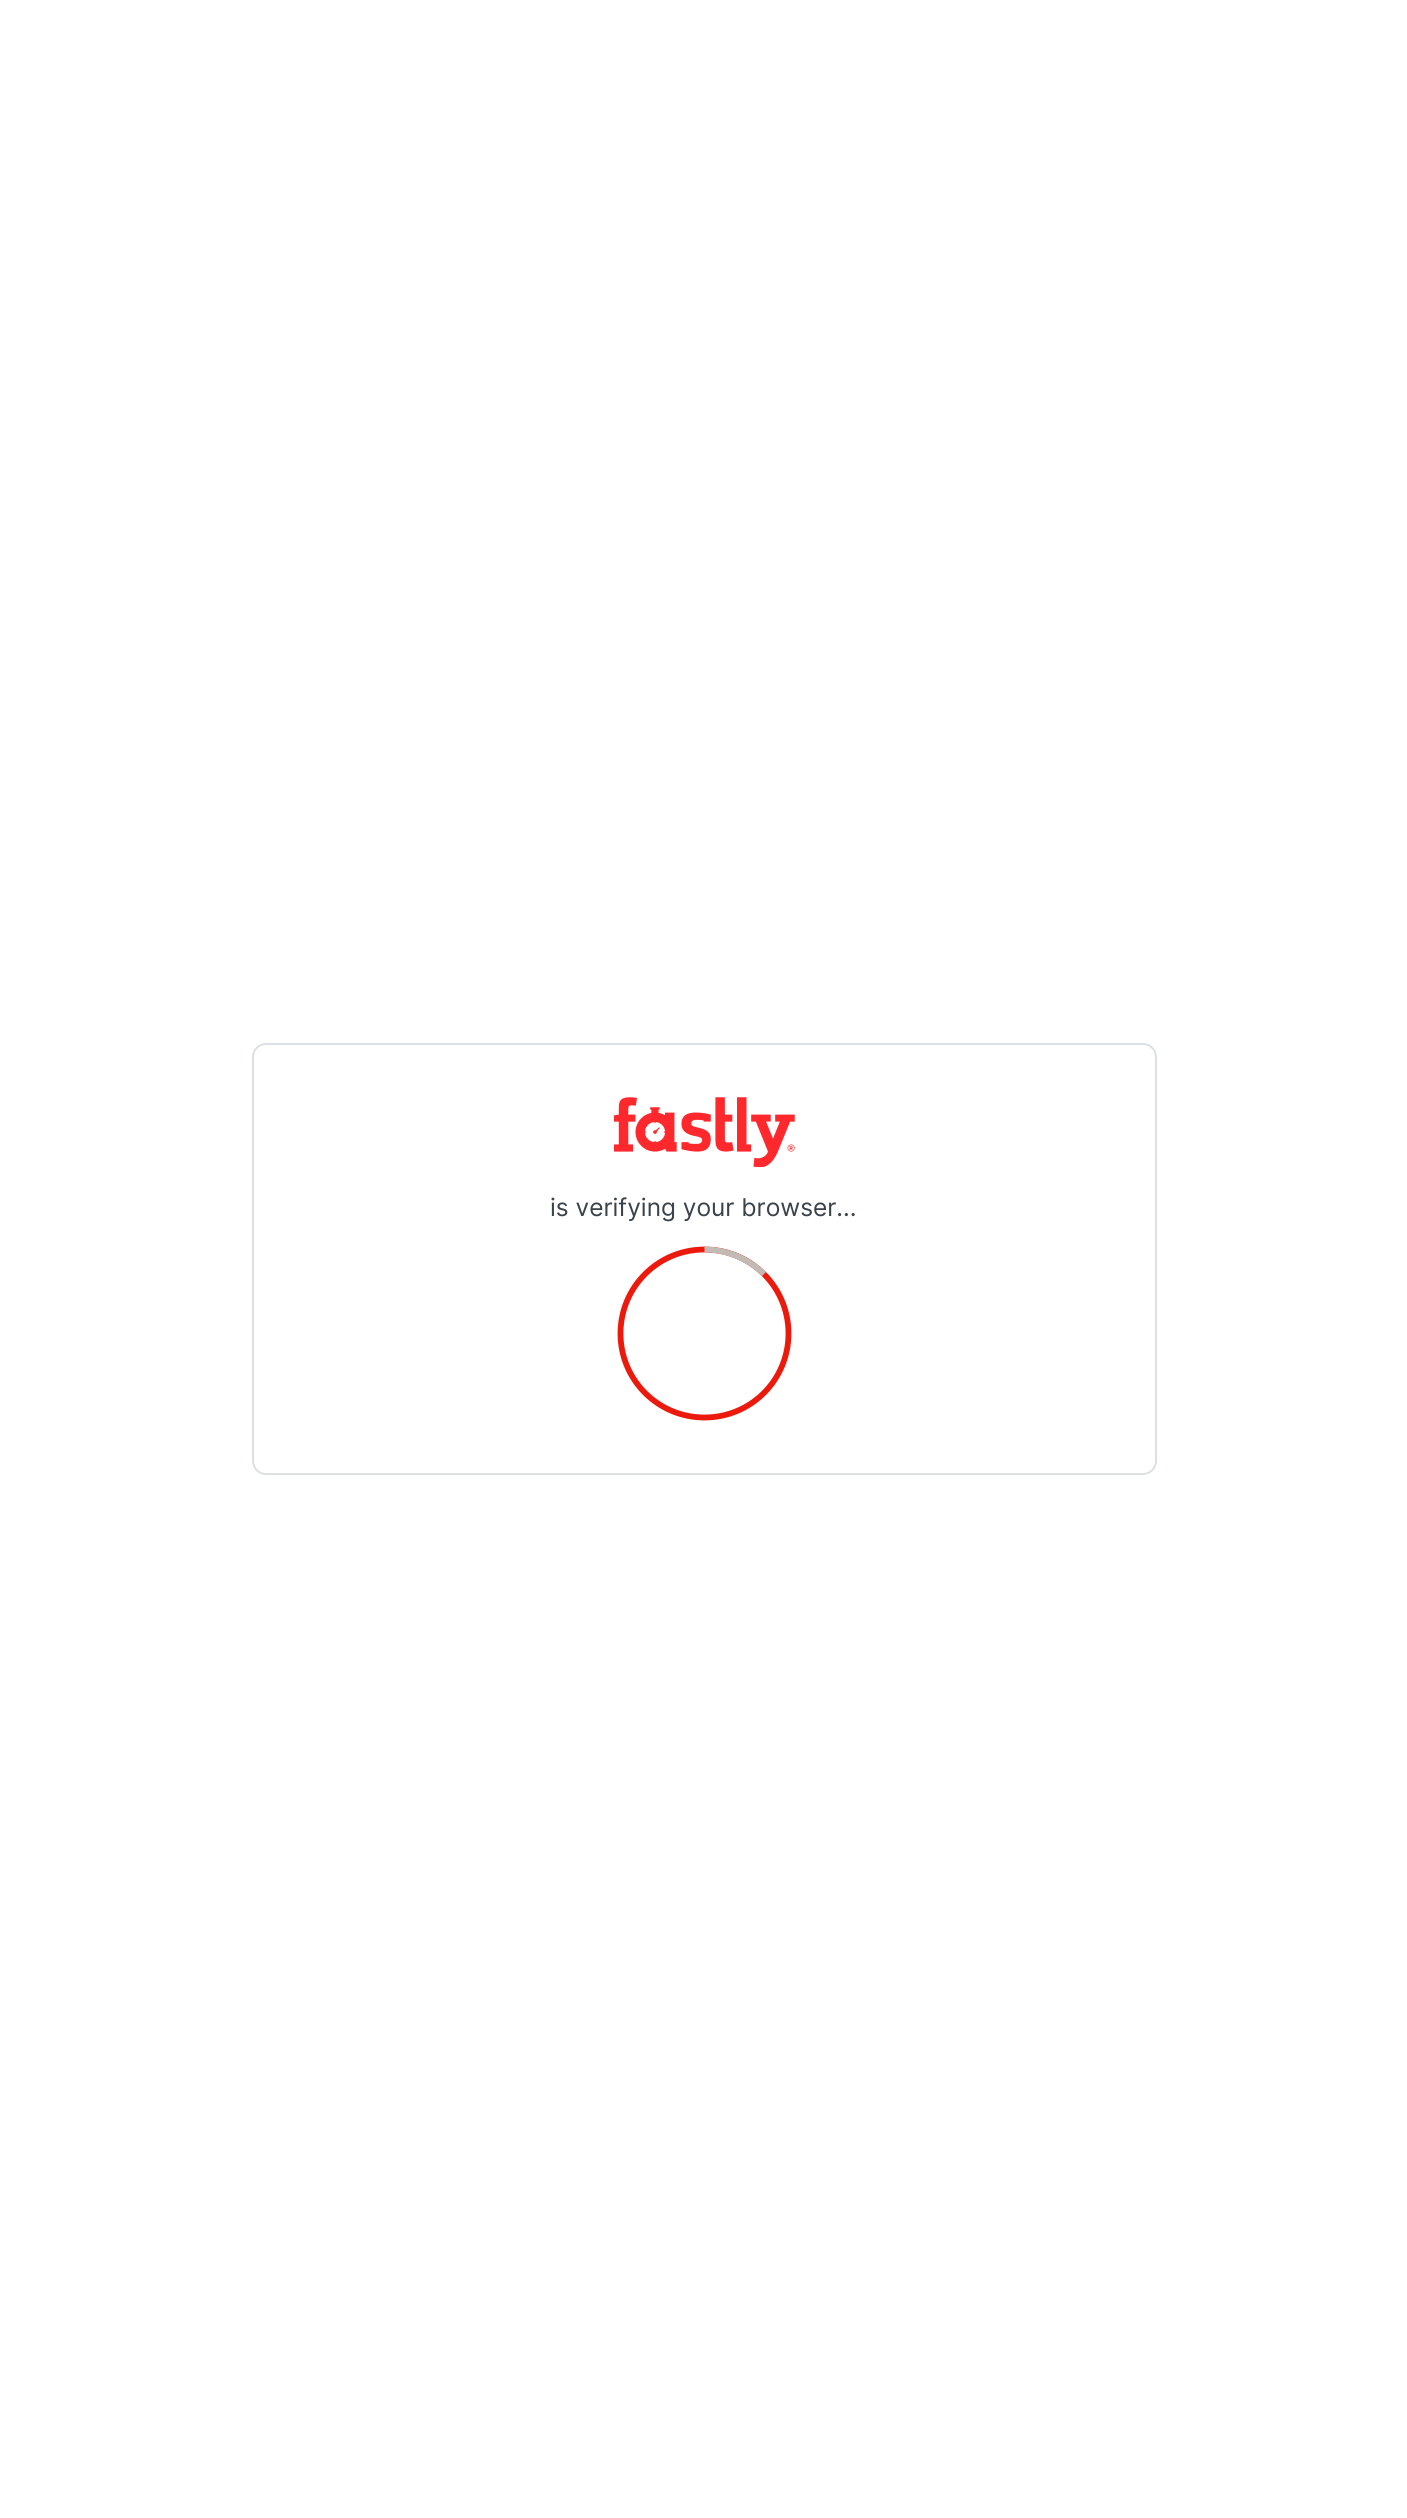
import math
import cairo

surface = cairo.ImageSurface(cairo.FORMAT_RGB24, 1407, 2518)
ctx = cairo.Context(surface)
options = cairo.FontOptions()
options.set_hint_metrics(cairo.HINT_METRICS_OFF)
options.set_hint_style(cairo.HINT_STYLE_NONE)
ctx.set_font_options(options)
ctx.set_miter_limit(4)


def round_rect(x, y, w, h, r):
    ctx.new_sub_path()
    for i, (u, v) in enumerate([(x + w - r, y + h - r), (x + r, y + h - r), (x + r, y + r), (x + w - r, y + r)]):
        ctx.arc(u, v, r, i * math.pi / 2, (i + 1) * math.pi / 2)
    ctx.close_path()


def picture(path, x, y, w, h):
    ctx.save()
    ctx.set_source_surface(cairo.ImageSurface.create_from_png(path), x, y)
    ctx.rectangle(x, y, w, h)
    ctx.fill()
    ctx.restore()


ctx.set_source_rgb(1, 1, 1)
ctx.paint()
round_rect(253, 1044, 903, 430, 13)
ctx.set_source_rgb(0.863, 0.878, 0.894)
ctx.stroke()
picture("img1.png", 614, 1097, 181, 70)
ctx.select_font_face("Inter")
ctx.set_font_size(24.5)
ctx.set_source_rgb(0.227, 0.259, 0.29)
ctx.move_to(550, 1216)
ctx.show_text("is verifying your browser...")
ctx.new_path()
ctx.move_to(620.5, 1333.5)
ctx.curve_to(620.5, 1287, 658, 1249.5, 704.5, 1249.5)
ctx.curve_to(751, 1249.5, 788.5, 1287, 788.5, 1333.5)
ctx.curve_to(788.5, 1380, 751, 1417.5, 704.5, 1417.5)
ctx.curve_to(658, 1417.5, 620.5, 1380, 620.5, 1333.5)
ctx.close_path()
ctx.set_source_rgb(0.922, 0.102, 0.047)
ctx.set_line_width(5.8)
ctx.stroke()
ctx.new_path()
ctx.move_to(764, 1274)
ctx.curve_to(748, 1258.5, 726.5, 1249.5, 704.5, 1249.5)
ctx.set_source_rgb(0.761, 0.729, 0.71)
ctx.stroke()
surface.write_to_png("page.png")
